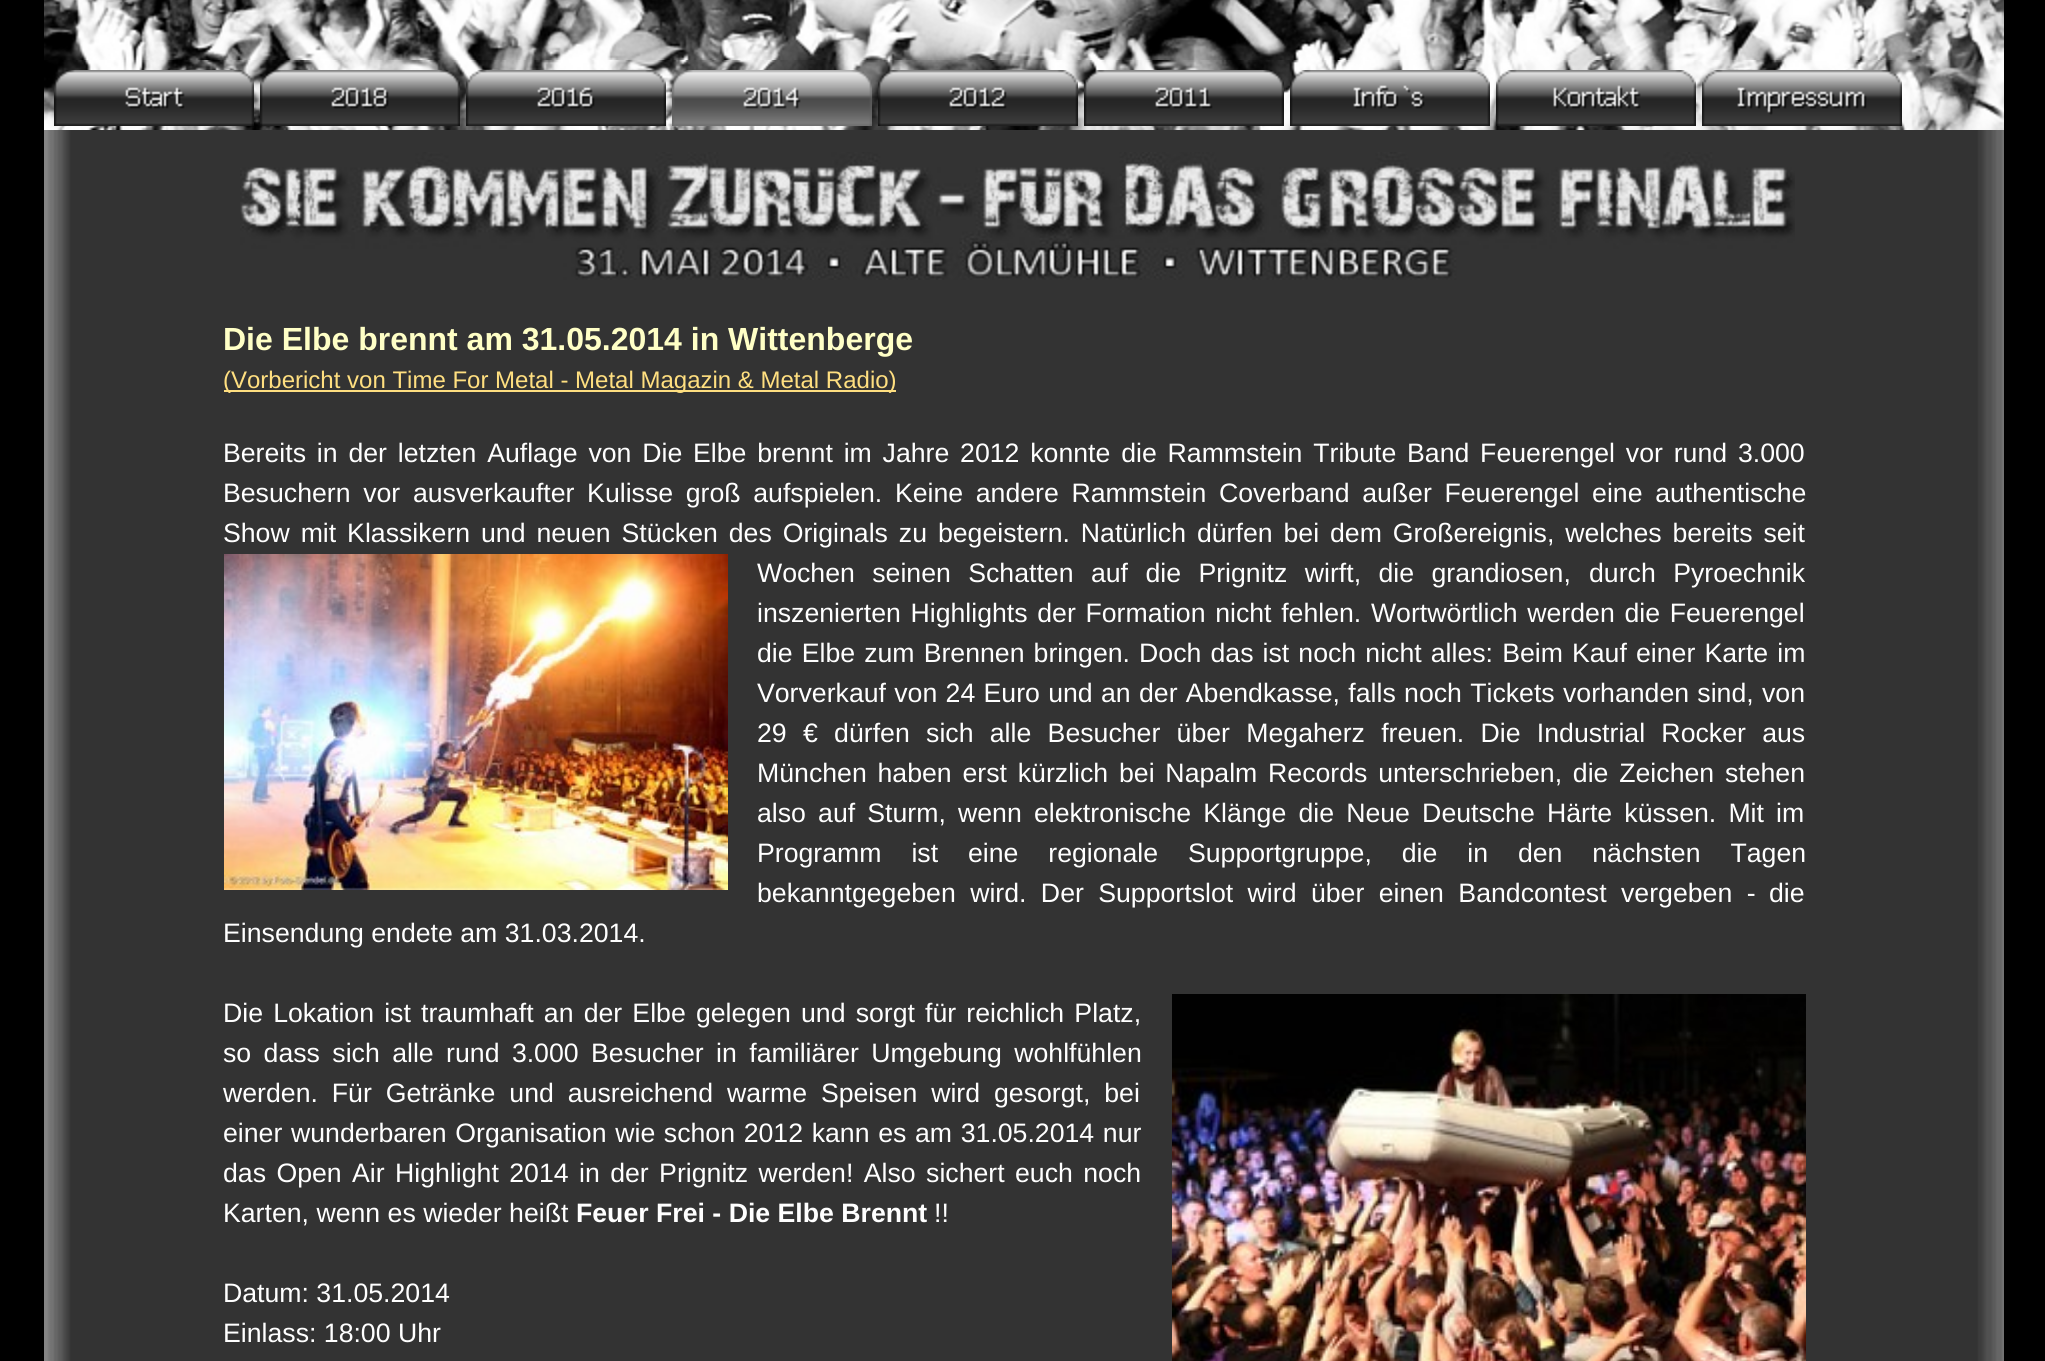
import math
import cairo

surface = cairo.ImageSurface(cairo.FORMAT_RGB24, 2045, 1361)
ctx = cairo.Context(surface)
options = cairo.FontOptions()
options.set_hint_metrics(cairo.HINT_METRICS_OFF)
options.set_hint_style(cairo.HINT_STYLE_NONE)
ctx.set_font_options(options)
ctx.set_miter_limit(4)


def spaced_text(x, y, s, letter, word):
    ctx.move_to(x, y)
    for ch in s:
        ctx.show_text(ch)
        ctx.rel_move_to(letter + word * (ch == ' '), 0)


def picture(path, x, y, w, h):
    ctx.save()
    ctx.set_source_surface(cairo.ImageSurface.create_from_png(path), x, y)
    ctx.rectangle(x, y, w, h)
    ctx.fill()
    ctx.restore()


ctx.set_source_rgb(0, 0, 0)
ctx.paint()
picture("img1.png", 44, 0, 1960, 60)
picture("img2.png", 44, 60, 1960, 70)
picture("img3.png", 54, 70, 200, 56)
picture("img4.png", 260, 70, 200, 56)
picture("img5.png", 466, 70, 200, 56)
picture("img6.png", 672, 70, 200, 56)
picture("img7.png", 878, 70, 200, 56)
picture("img8.png", 1084, 70, 200, 56)
picture("img9.png", 1290, 70, 200, 56)
picture("img10.png", 1496, 70, 200, 56)
picture("img11.png", 1702, 70, 200, 56)
picture("img12.png", 44, 130, 1960, 1231)
picture("img13.png", 240, 152, 1555, 128)
ctx.select_font_face("Liberation Sans", cairo.FONT_SLANT_NORMAL, cairo.FONT_WEIGHT_BOLD)
ctx.set_font_size(32)
ctx.set_source_rgb(1, 1, 0.776)
ctx.move_to(223, 350)
ctx.show_text("Die Elbe brennt am 31.05.2014 in Wittenberge")
ctx.set_source_rgb(1, 0.875, 0.502)
ctx.rectangle(224, 390, 672, 2)
ctx.fill()
ctx.select_font_face("Liberation Sans")
ctx.set_font_size(24)
ctx.move_to(223, 388)
ctx.show_text("(Vorbericht von Time For Metal - Metal Magazin & Metal Radio)")
ctx.set_font_size(26.67)
ctx.set_source_rgb(1, 1, 1)
spaced_text(223, 462, "Bereits in der letzten Auflage von Die Elbe brennt im Jahre 2012 konnte die Rammstein Tribute Band Feuerengel vor rund 3.000", 0, 3.4)
spaced_text(223, 502, "Besuchern vor ausverkaufter Kulisse groß aufspielen. Keine andere Rammstein Coverband außer Feuerengel eine authentische", 0, 5.25)
spaced_text(223, 542, "Show mit Klassikern und neuen Stücken des Originals zu begeistern. Natürlich dürfen bei dem Großereignis, welches bereits seit", 0, 3.5)
picture("img14.png", 224, 554, 504, 336)
spaced_text(757, 582, "Wochen seinen Schatten auf die Prignitz wirft, die grandiosen,", 0, 10)
spaced_text(1589, 582, "durch Pyroechnik", 0, 10)
spaced_text(757, 622, "inszenierten Highlights der Formation nicht fehlen. Wortwörtlich werden die Feuerengel", 0, 2.25)
spaced_text(757, 662, "die Elbe zum Brennen bringen. Doch das ist noch nicht alles: Beim Kauf einer Karte im", 0, 1.7)
spaced_text(757, 702, "Vorverkauf von 24 Euro und an der Abendkasse, falls noch Tickets vorhanden sind, von", 0, 0.9)
spaced_text(757, 742, "29 € dürfen sich alle Besucher über Megaherz freuen. Die Industrial Rocker aus", 0, 8.9)
spaced_text(757, 782, "München haben erst kürzlich bei Napalm Records unterschrieben, die Zeichen stehen", 0, 3.4)
spaced_text(757, 822, "also auf Sturm, wenn elektronische Klänge die Neue Deutsche Härte küssen. Mit im", 0, 4.75)
spaced_text(757, 862, "Programm ist eine regionale Supportgruppe, die in den nächsten Tagen", 0, 22.5)
spaced_text(757, 902, "bekanntgegeben wird. Der Supportslot wird über einen Bandcontest vergeben -", 0, 7)
ctx.move_to(1769, 902)
ctx.show_text("die")
ctx.move_to(223, 942)
ctx.show_text("Einsendung endete am 31.03.2014.")
spaced_text(223, 1022, "Die Lokation ist traumhaft an der Elbe gelegen und sorgt für reichlich Platz,", 0, 2.75)
picture("img15.png", 1172, 994, 634, 367)
spaced_text(223, 1062, "so dass sich alle rund 3.000 Besucher in familiärer Umgebung wohlfühlen", 0, 5)
spaced_text(223, 1102, "werden. Für Getränke und ausreichend warme Speisen wird gesorgt, bei", 0, 6.5)
spaced_text(223, 1142, "einer wunderbaren Organisation wie schon 2012 kann es am 31.05.2014 nur", 0, 1.25)
spaced_text(223, 1182, "das Open Air Highlight 2014 in der Prignitz werden! Also sichert euch noch", 0, 3)
ctx.move_to(223, 1222)
ctx.show_text("Karten, wenn es wieder heißt")
ctx.select_font_face("Liberation Sans", cairo.FONT_SLANT_NORMAL, cairo.FONT_WEIGHT_BOLD)
ctx.move_to(576, 1222)
ctx.show_text("Feuer Frei - Die Elbe Brennt")
ctx.select_font_face("Liberation Sans")
ctx.move_to(934, 1222)
ctx.show_text("!!")
ctx.move_to(223, 1302)
ctx.show_text("Datum: 31.05.2014")
ctx.move_to(223, 1342)
ctx.show_text("Einlass: 18:00 Uhr")
surface.write_to_png("page.png")
